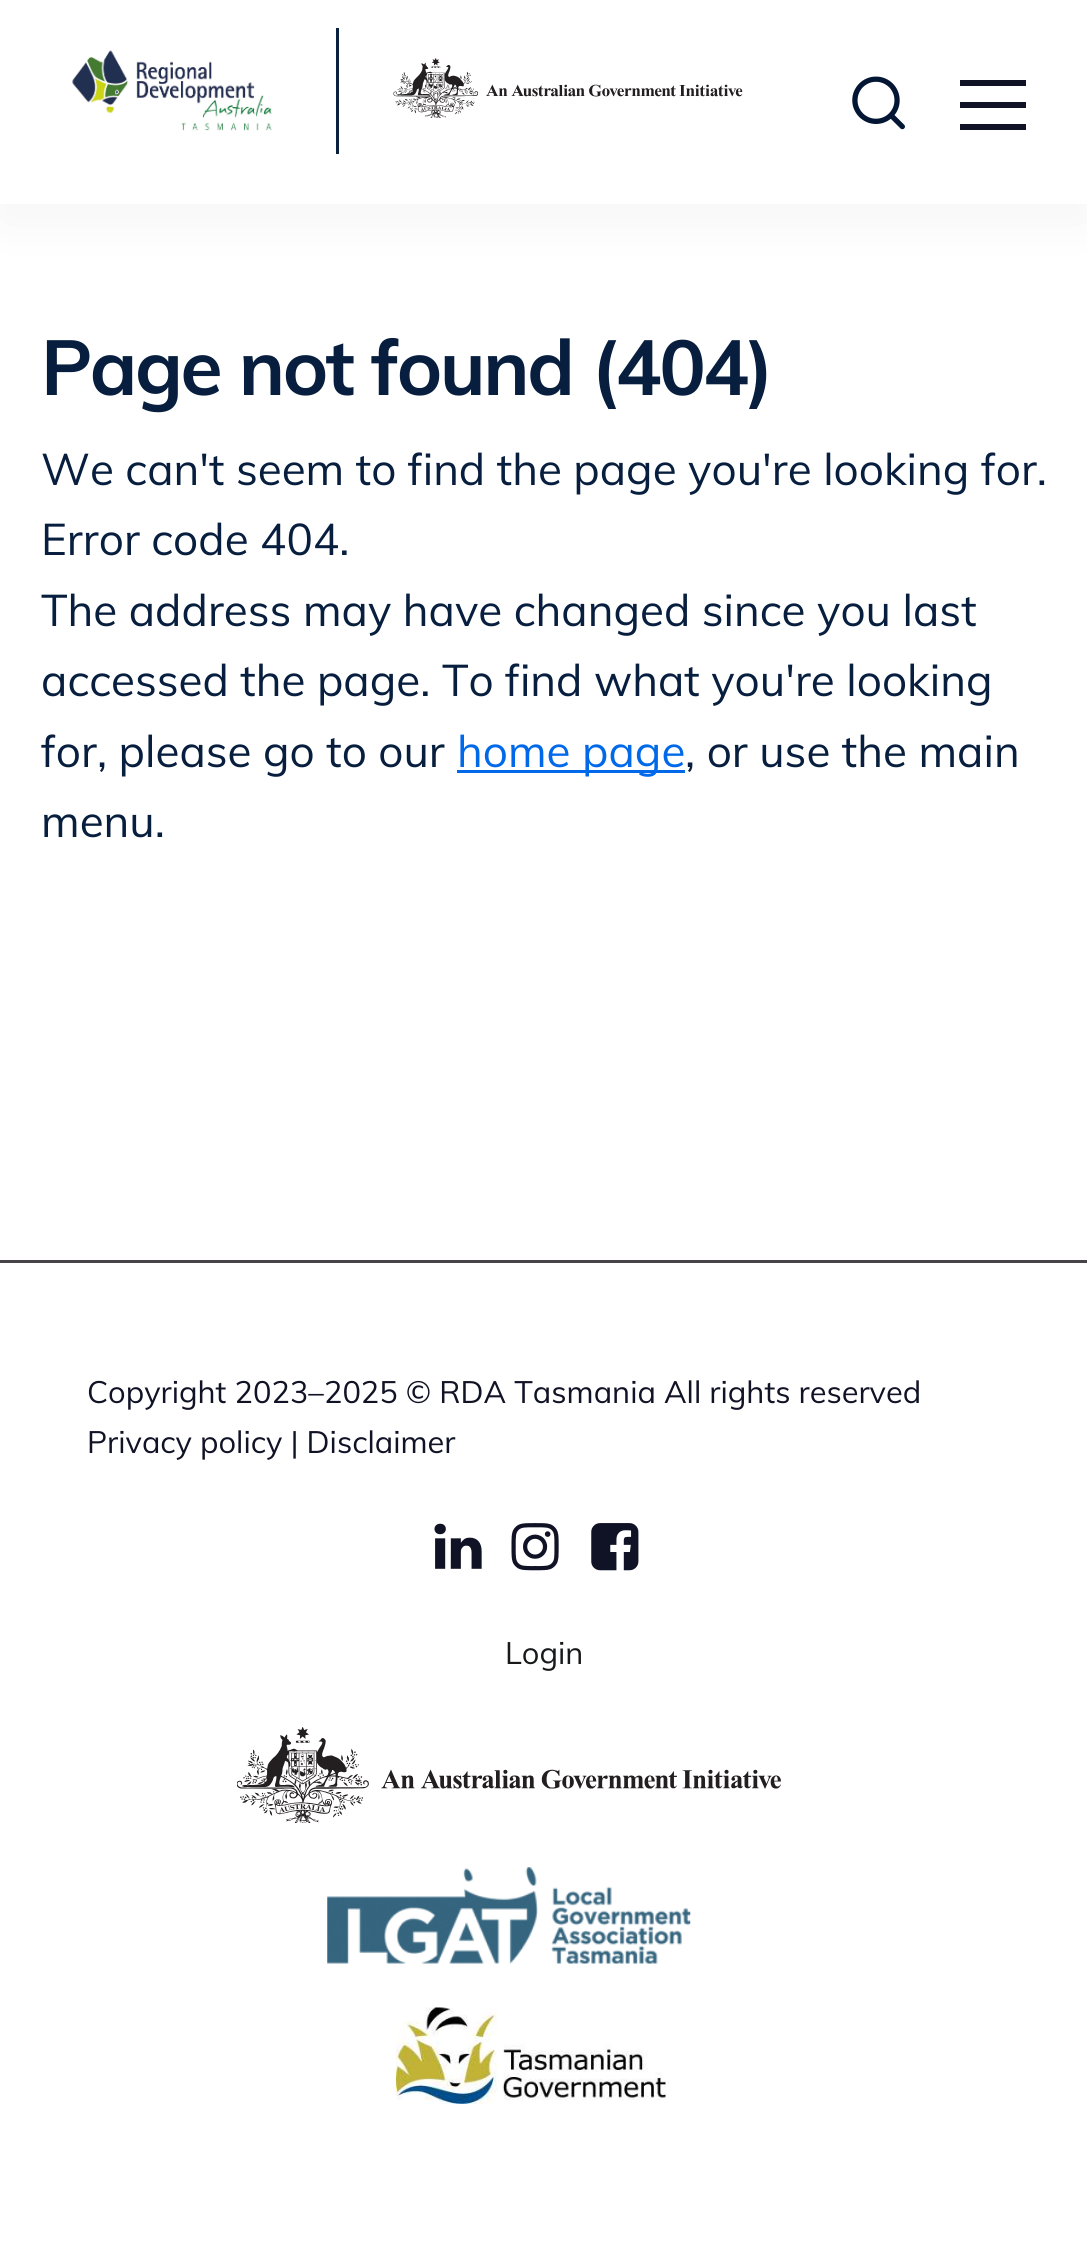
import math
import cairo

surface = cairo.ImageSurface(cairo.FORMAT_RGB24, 1087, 2256)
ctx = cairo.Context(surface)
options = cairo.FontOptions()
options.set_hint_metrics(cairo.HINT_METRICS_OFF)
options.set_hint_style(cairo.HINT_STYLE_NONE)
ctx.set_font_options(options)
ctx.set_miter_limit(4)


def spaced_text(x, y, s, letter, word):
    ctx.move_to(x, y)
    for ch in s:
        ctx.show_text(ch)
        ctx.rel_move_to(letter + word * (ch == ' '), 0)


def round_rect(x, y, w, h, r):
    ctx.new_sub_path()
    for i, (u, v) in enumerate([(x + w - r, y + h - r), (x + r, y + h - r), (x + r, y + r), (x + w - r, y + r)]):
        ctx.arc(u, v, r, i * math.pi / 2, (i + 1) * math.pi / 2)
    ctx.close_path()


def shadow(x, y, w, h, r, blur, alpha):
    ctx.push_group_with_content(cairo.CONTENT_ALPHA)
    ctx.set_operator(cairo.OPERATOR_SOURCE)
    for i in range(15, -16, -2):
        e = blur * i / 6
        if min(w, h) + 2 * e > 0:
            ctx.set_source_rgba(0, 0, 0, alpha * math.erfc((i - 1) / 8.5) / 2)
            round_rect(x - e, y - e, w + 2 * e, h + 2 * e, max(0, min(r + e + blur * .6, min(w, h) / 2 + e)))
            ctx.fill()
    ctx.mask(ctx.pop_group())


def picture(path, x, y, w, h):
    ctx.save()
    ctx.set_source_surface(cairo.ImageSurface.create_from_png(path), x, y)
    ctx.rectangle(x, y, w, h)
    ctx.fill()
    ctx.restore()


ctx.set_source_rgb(1, 1, 1)
ctx.paint()
ctx.set_source_rgb(0, 0, 0)
shadow(0, 19, 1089, 204, 0, 27.5, 0.04)
ctx.set_source_rgb(1, 1, 1)
ctx.rectangle(0, 0, 1087, 204)
ctx.fill()
picture("img1.png", 72, 50, 200, 81)
ctx.set_source_rgb(0.039, 0.125, 0.247)
ctx.rectangle(336, 28, 3, 126)
ctx.fill()
picture("img2.png", 393, 58, 350, 60)
picture("img3.png", 852, 76, 53, 54)
ctx.set_source_rgb(0.063, 0.071, 0.149)
ctx.rectangle(960, 102, 66, 6)
ctx.fill()
ctx.rectangle(960, 80, 66, 6)
ctx.fill()
ctx.rectangle(960, 124, 66, 6)
ctx.fill()
ctx.select_font_face("Muli", cairo.FONT_SLANT_NORMAL, cairo.FONT_WEIGHT_BOLD)
ctx.set_font_size(77)
ctx.set_source_rgb(0.031, 0.118, 0.243)
spaced_text(41, 395, "Page not found (404)", -2.5, 0)
ctx.select_font_face("Muli")
ctx.set_font_size(44)
ctx.move_to(41, 485)
ctx.show_text("We can't seem to find the page you're looking for.")
ctx.move_to(41, 555)
ctx.show_text("Error code 404.")
ctx.move_to(41, 626)
ctx.show_text("The address may have changed since you last")
ctx.move_to(41, 696)
ctx.show_text("accessed the page. To find what you're looking")
ctx.move_to(41, 767)
ctx.show_text("for, please go to our")
ctx.set_source_rgb(0, 0.412, 0.914)
ctx.rectangle(457, 770, 228, 3)
ctx.fill()
ctx.move_to(457, 767)
ctx.show_text("home page")
ctx.set_source_rgb(0.031, 0.118, 0.243)
ctx.move_to(685, 767)
ctx.show_text(", or use the main")
ctx.move_to(41, 837)
ctx.show_text("menu.")
ctx.set_source_rgb(0.275, 0.267, 0.278)
ctx.rectangle(0, 1260, 1087, 3)
ctx.fill()
ctx.set_font_size(30.8)
ctx.set_source_rgb(0.063, 0.071, 0.149)
ctx.move_to(87, 1403)
ctx.show_text("Copyright 2023–2025 © RDA Tasmania All rights reserved")
ctx.move_to(87, 1453)
ctx.show_text("Privacy policy | Disclaimer")
picture("img4.png", 434, 1523, 48, 46)
picture("img5.png", 511, 1523, 48, 48)
picture("img6.png", 591, 1523, 48, 48)
ctx.set_source_rgb(0.094, 0.098, 0.106)
ctx.move_to(505, 1664)
ctx.show_text("Login")
picture("img7.png", 237, 1727, 544, 96)
picture("img8.png", 327, 1867, 364, 97)
picture("img9.png", 396, 2007, 270, 97)
surface.write_to_png("page.png")
